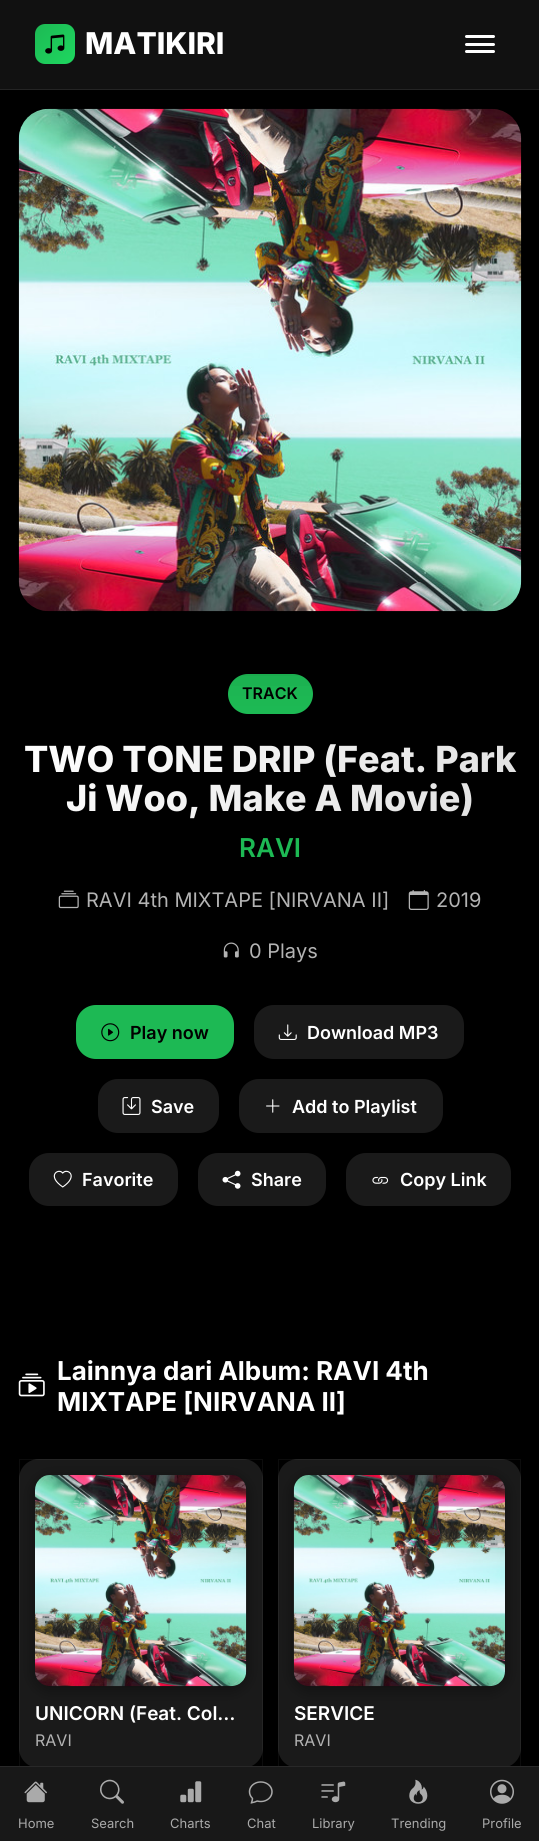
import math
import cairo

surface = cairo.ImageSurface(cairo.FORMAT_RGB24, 539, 1841)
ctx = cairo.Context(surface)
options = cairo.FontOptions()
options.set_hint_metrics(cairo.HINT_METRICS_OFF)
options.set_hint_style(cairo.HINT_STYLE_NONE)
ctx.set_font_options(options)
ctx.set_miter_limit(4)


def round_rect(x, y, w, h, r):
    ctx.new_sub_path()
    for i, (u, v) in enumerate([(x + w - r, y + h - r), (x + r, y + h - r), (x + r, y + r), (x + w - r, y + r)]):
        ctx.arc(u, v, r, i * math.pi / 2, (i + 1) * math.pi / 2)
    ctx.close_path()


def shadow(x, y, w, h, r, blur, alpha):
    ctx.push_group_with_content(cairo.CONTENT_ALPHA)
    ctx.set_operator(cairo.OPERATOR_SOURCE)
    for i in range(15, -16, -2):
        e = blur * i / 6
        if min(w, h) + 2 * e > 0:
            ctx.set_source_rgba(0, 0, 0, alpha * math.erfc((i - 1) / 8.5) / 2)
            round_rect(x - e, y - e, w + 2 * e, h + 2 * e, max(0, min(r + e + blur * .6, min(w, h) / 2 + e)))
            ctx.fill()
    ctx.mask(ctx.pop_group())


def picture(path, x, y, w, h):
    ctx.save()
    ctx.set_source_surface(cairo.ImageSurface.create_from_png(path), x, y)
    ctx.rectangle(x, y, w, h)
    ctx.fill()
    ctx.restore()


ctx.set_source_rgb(0, 0, 0)
ctx.paint()
ctx.set_source_rgb(0.114, 0.725, 0.329)
round_rect(228, 674, 85, 40, 20)
ctx.fill()
ctx.set_source_rgb(0, 0, 0)
shadow(19, 129, 502, 502, 30, 30, 0.8)
ctx.set_source_rgb(0.067, 0.067, 0.067)
ctx.rectangle(0, 0, 539, 89)
ctx.fill()
ctx.set_source_rgb(0.141, 0.141, 0.141)
ctx.rectangle(0, 89, 539, 1)
ctx.fill()
gradient = cairo.LinearGradient(35, 24, 75, 64)
gradient.add_color_stop_rgba(0, 0.114, 0.725, 0.329, 1)
gradient.add_color_stop_rgba(1, 0.118, 0.843, 0.376, 1)
ctx.set_source(gradient)
round_rect(35, 24, 40, 40, 10)
ctx.fill()
picture("img1.png", 45, 34, 20, 20)
ctx.select_font_face("Inter ExtraBold")
ctx.set_font_size(30)
ctx.set_source_rgb(1, 1, 1)
ctx.move_to(85, 54)
ctx.show_text("MATIKIRI")
round_rect(465, 35, 30, 3, 1.5)
ctx.fill()
round_rect(465, 43, 30, 3, 1.5)
ctx.fill()
round_rect(465, 50, 30, 3, 1.5)
ctx.fill()
picture("img2.png", 18, 108, 504, 504)
ctx.select_font_face("Inter SemiBold")
ctx.set_font_size(16)
ctx.set_source_rgb(0, 0, 0)
ctx.move_to(242, 699)
ctx.show_text("TRACK")
ctx.select_font_face("Inter ExtraBold")
ctx.set_font_size(36)
gradient = cairo.LinearGradient(125, 634, 415, 924)
gradient.add_color_stop_rgba(0, 1, 1, 1, 1)
gradient.add_color_stop_rgba(1, 0.878, 0.878, 0.878, 1)
ctx.set_source(gradient)
ctx.move_to(24, 772)
ctx.show_text("TWO TONE DRIP (Feat. Park")
ctx.move_to(66, 811)
ctx.show_text("Ji Woo, Make A Movie)")
ctx.select_font_face("Inter SemiBold")
ctx.set_font_size(26)
ctx.set_source_rgb(0.114, 0.725, 0.329)
ctx.move_to(239, 857)
ctx.show_text("RAVI")
picture("img3.png", 58, 890, 21, 19)
ctx.select_font_face("Inter")
ctx.set_font_size(20)
ctx.set_source_rgb(0.702, 0.702, 0.702)
ctx.move_to(86, 907)
ctx.show_text("RAVI 4th MIXTAPE [NIRVANA II]")
picture("img4.png", 408, 890, 21, 20)
ctx.move_to(436, 907)
ctx.show_text("2019")
picture("img5.png", 223, 942, 16, 16)
ctx.move_to(249, 958)
ctx.show_text("0 Plays")
ctx.set_source_rgb(0.114, 0.725, 0.329)
round_rect(76, 1005, 158, 54, 20)
ctx.fill()
picture("img6.png", 101, 1023, 19, 19)
ctx.select_font_face("Inter SemiBold")
ctx.set_font_size(18)
ctx.set_source_rgb(0, 0, 0)
ctx.move_to(130, 1039)
ctx.show_text("Play now")
ctx.set_source_rgb(0.102, 0.102, 0.102)
round_rect(254, 1005, 210, 54, 20)
ctx.fill()
picture("img7.png", 278, 1024, 19, 16)
ctx.set_source_rgb(1, 1, 1)
ctx.move_to(307, 1039)
ctx.show_text("Download MP3")
ctx.set_source_rgb(0.102, 0.102, 0.102)
round_rect(98, 1079, 121, 54, 20)
ctx.fill()
picture("img8.png", 122, 1097, 19, 18)
ctx.set_source_rgb(1, 1, 1)
ctx.move_to(151, 1113)
ctx.show_text("Save")
ctx.set_source_rgb(0.102, 0.102, 0.102)
round_rect(239, 1079, 204, 54, 20)
ctx.fill()
picture("img9.png", 266, 1099, 14, 14)
ctx.set_source_rgb(1, 1, 1)
ctx.move_to(292, 1113)
ctx.show_text("Add to Playlist")
ctx.set_source_rgb(0.102, 0.102, 0.102)
round_rect(29, 1153, 149, 53, 20)
ctx.fill()
picture("img10.png", 53, 1170, 19, 18)
ctx.set_source_rgb(1, 1, 1)
ctx.move_to(82, 1186)
ctx.show_text("Favorite")
ctx.set_source_rgb(0.102, 0.102, 0.102)
round_rect(198, 1153, 128, 53, 20)
ctx.fill()
picture("img11.png", 222, 1170, 19, 19)
ctx.set_source_rgb(1, 1, 1)
ctx.move_to(251, 1186)
ctx.show_text("Share")
ctx.set_source_rgb(0.102, 0.102, 0.102)
round_rect(346, 1153, 165, 53, 20)
ctx.fill()
picture("img12.png", 372, 1176, 17, 8)
ctx.set_source_rgb(1, 1, 1)
ctx.move_to(400, 1186)
ctx.show_text("Copy Link")
picture("img13.png", 18, 1373, 27, 24)
ctx.select_font_face("Inter", cairo.FONT_SLANT_NORMAL, cairo.FONT_WEIGHT_BOLD)
ctx.set_font_size(26)
ctx.move_to(57, 1380)
ctx.show_text("Lainnya dari Album: RAVI 4th")
ctx.move_to(57, 1411)
ctx.show_text("MIXTAPE [NIRVANA II]")
ctx.set_source_rgb(0.102, 0.102, 0.102)
round_rect(19, 1459, 244, 309, 20)
ctx.fill()
ctx.rectangle(19.5, 1459.5, 243, 308)
ctx.set_source_rgba(1, 1, 1, 0.05)
ctx.set_line_width(1)
ctx.stroke()
ctx.set_source_rgb(0, 0, 0)
shadow(35, 1478, 211, 211, 15, 7.5, 0.4)
picture("img14.png", 35, 1475, 212, 212)
ctx.select_font_face("Inter SemiBold")
ctx.set_font_size(19)
ctx.set_source_rgb(1, 1, 1)
ctx.move_to(35, 1720)
ctx.show_text("UNICORN (Feat. Col…")
ctx.select_font_face("Inter")
ctx.set_font_size(16)
ctx.set_source_rgb(0.702, 0.702, 0.702)
ctx.move_to(35, 1746)
ctx.show_text("RAVI")
ctx.set_source_rgb(0.102, 0.102, 0.102)
round_rect(278, 1459, 243, 309, 20)
ctx.fill()
ctx.rectangle(278.5, 1459.5, 242, 308)
ctx.set_source_rgba(1, 1, 1, 0.05)
ctx.stroke()
ctx.set_source_rgb(0, 0, 0)
shadow(294, 1478, 211, 211, 15, 7.5, 0.4)
picture("img15.png", 293, 1475, 212, 212)
ctx.select_font_face("Inter SemiBold")
ctx.set_font_size(19)
ctx.set_source_rgb(1, 1, 1)
ctx.move_to(294, 1720)
ctx.show_text("SERVICE")
ctx.select_font_face("Inter")
ctx.set_font_size(16)
ctx.set_source_rgb(0.702, 0.702, 0.702)
ctx.move_to(294, 1746)
ctx.show_text("RAVI")
ctx.set_source_rgb(0.094, 0.094, 0.094)
ctx.rectangle(0, 1767, 539, 74)
ctx.fill()
ctx.set_source_rgb(0.157, 0.157, 0.157)
ctx.rectangle(0, 1766, 539, 1)
ctx.fill()
picture("img16.png", 24, 1781, 23, 22)
ctx.set_font_size(13)
ctx.set_source_rgb(0.667, 0.667, 0.667)
ctx.move_to(18, 1828)
ctx.show_text("Home")
picture("img17.png", 100, 1779, 24, 25)
ctx.move_to(91, 1828)
ctx.show_text("Search")
picture("img18.png", 180, 1781, 22, 22)
ctx.move_to(170, 1828)
ctx.show_text("Charts")
picture("img19.png", 248, 1781, 25, 23)
ctx.move_to(247, 1828)
ctx.show_text("Chat")
picture("img20.png", 321, 1781, 25, 22)
ctx.move_to(312, 1828)
ctx.show_text("Library")
picture("img21.png", 409, 1779, 19, 25)
ctx.move_to(391, 1828)
ctx.show_text("Trending")
picture("img22.png", 490, 1779, 24, 25)
ctx.move_to(482, 1828)
ctx.show_text("Profile")
surface.write_to_png("page.png")
